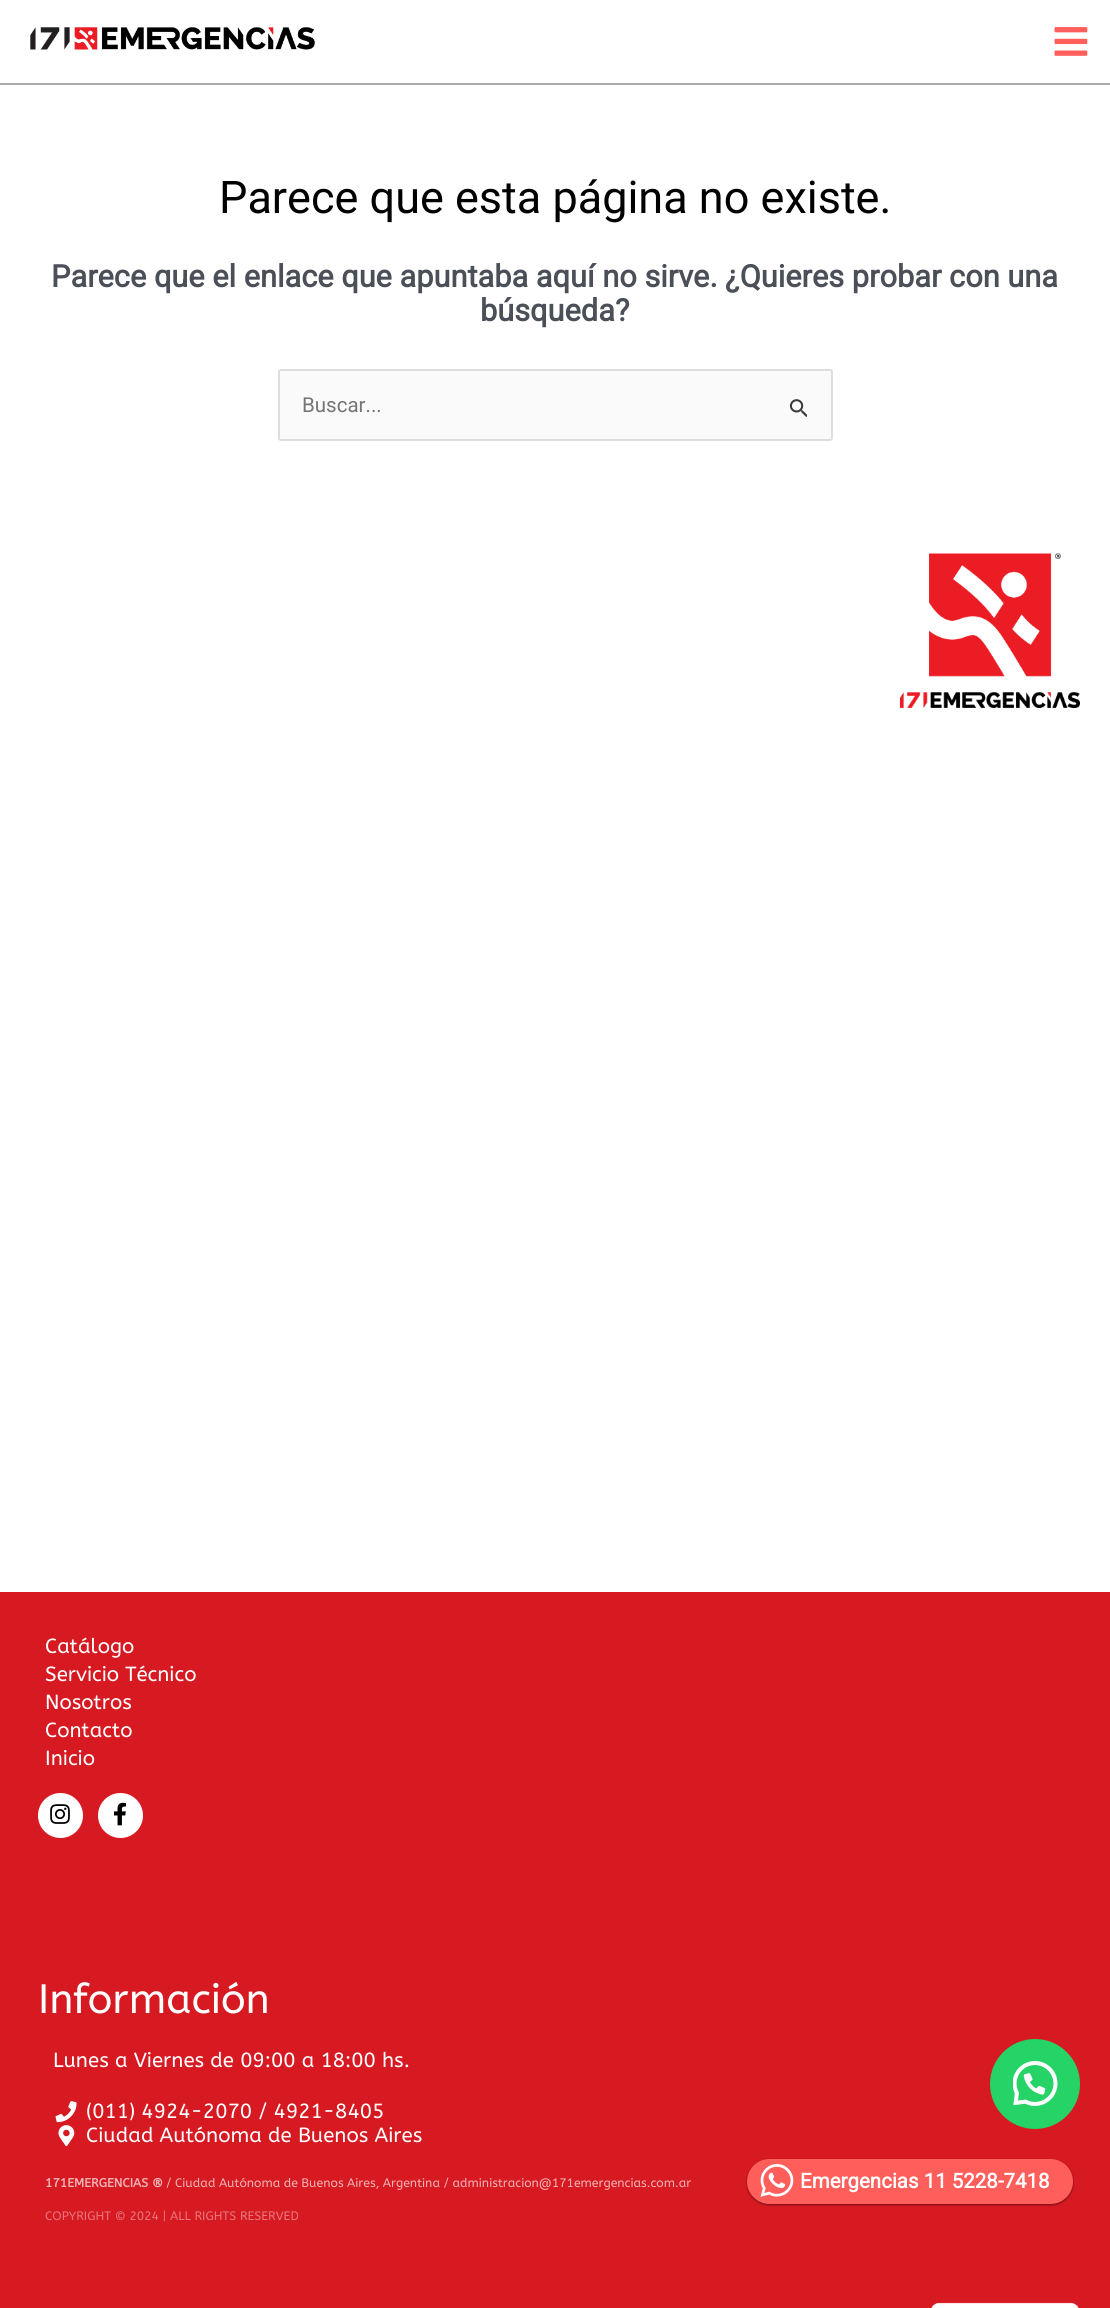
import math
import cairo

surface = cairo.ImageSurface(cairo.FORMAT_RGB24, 1110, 2308)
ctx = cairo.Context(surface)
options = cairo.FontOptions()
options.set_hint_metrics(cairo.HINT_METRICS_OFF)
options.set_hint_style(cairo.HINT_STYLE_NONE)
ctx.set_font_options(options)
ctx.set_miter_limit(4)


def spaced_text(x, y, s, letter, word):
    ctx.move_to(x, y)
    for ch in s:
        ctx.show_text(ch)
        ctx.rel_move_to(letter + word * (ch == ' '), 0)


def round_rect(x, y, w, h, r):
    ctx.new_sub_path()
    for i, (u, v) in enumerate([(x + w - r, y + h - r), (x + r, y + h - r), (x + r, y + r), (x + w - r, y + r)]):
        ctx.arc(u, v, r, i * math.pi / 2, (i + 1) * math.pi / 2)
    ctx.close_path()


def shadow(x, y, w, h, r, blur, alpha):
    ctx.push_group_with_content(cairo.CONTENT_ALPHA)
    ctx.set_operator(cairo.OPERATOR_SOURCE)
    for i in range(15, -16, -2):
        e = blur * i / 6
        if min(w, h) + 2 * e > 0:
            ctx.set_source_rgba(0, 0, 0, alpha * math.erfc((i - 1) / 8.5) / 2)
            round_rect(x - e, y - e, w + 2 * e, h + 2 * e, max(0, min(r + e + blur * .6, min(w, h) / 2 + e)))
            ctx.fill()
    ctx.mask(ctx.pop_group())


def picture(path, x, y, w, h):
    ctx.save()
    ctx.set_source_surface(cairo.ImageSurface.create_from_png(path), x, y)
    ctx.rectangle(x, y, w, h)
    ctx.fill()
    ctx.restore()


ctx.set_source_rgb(1, 1, 1)
ctx.paint()
ctx.select_font_face("Roboto")
ctx.set_font_size(45)
ctx.set_source_rgb(0, 0, 0)
ctx.move_to(219, 213)
ctx.show_text("Parece que esta página no existe.")
ctx.select_font_face("Roboto", cairo.FONT_SLANT_NORMAL, cairo.FONT_WEIGHT_BOLD)
ctx.set_font_size(30.75)
ctx.set_source_rgb(0.294, 0.31, 0.345)
ctx.move_to(51, 287)
ctx.show_text("Parece que el enlace que apuntaba aquí no sirve. ¿Quieres probar con una")
ctx.move_to(480, 321)
ctx.show_text("búsqueda?")
ctx.set_source_rgb(0.98, 0.98, 0.98)
round_rect(279, 370, 553, 70, 2)
ctx.fill_preserve()
ctx.set_source_rgb(0.867, 0.867, 0.867)
ctx.stroke()
ctx.select_font_face("Roboto")
ctx.set_font_size(20.5)
ctx.set_source_rgb(0.459, 0.459, 0.459)
ctx.move_to(302, 412)
ctx.show_text("Buscar...")
picture("img1.png", 789, 399, 18, 18)
picture("img2.png", 900, 553, 180, 155)
ctx.set_source_rgb(0.843, 0.098, 0.129)
ctx.rectangle(0, 1592, 1110, 716)
ctx.fill()
ctx.select_font_face("ABeeZee")
ctx.set_source_rgb(1, 1, 1)
ctx.move_to(45, 1653)
ctx.show_text("Catálogo")
ctx.move_to(45, 1681)
ctx.show_text("Servicio Técnico")
ctx.move_to(45, 1709)
ctx.show_text("Nosotros")
ctx.move_to(45, 1737)
ctx.show_text("Contacto")
ctx.move_to(45, 1765)
ctx.show_text("Inicio")
ctx.new_path()
ctx.arc(60.5, 1815.5, 22.5, 0, 2 * math.pi)
ctx.fill()
picture("img3.png", 50, 1804, 20, 20)
ctx.arc(120.5, 1815.5, 22.5, 0, 2 * math.pi)
ctx.fill()
picture("img4.png", 114, 1802, 12, 24)
ctx.set_font_size(41)
ctx.move_to(38, 2013)
ctx.show_text("Información")
ctx.set_font_size(20.5)
ctx.move_to(53, 2067)
ctx.show_text("Lunes a Viernes de 09:00 a 18:00 hs.")
picture("img5.png", 55, 2101, 22, 22)
ctx.move_to(86, 2118)
ctx.show_text("(011) 4924-2070 / 4921-8405")
picture("img6.png", 58, 2125, 17, 22)
ctx.move_to(86, 2142)
ctx.show_text("Ciudad Autónoma de Buenos Aires")
ctx.select_font_face("ABeeZee", cairo.FONT_SLANT_NORMAL, cairo.FONT_WEIGHT_BOLD)
ctx.set_font_size(12.3)
ctx.set_source_rgb(0.949, 0.698, 0.71)
ctx.move_to(45, 2187)
ctx.show_text("171EMERGENCIAS ®")
ctx.select_font_face("ABeeZee")
spaced_text(166, 2187, "/ Ciudad Autónoma de Buenos Aires, Argentina / administracion@171emergencias.com.ar", 0, -0.25)
ctx.set_source_rgb(0.906, 0.459, 0.478)
ctx.move_to(45, 2220)
ctx.show_text("COPYRIGHT © 2024 | ALL RIGHTS RESERVED")
picture("img7.png", 931, 2302, 148, 6)
ctx.set_source_rgb(0.667, 0.667, 0.667)
ctx.rectangle(0, 83, 1110, 2)
ctx.fill()
picture("img8.png", 1054, 27, 34, 29)
picture("img9.png", 30, 27, 285, 23)
ctx.set_source_rgb(0, 0, 0)
shadow(747, 2160, 326, 45, 22.5, 1, 0.47)
ctx.set_source_rgb(1, 0.369, 0.357)
round_rect(747, 2159, 326, 45, 22.5)
ctx.fill()
picture("img10.png", 760, 2164, 34, 33)
ctx.select_font_face("Roboto", cairo.FONT_SLANT_NORMAL, cairo.FONT_WEIGHT_BOLD)
ctx.set_font_size(20.5)
ctx.set_source_rgb(1, 1, 1)
ctx.move_to(800, 2188)
ctx.show_text("Emergencias 11 5228-7418")
ctx.set_source_rgb(0.145, 0.827, 0.4)
ctx.new_path()
ctx.arc(1035, 2084, 45, 0, 2 * math.pi)
ctx.fill()
picture("img11.png", 1013, 2061, 45, 45)
surface.write_to_png("page.png")
